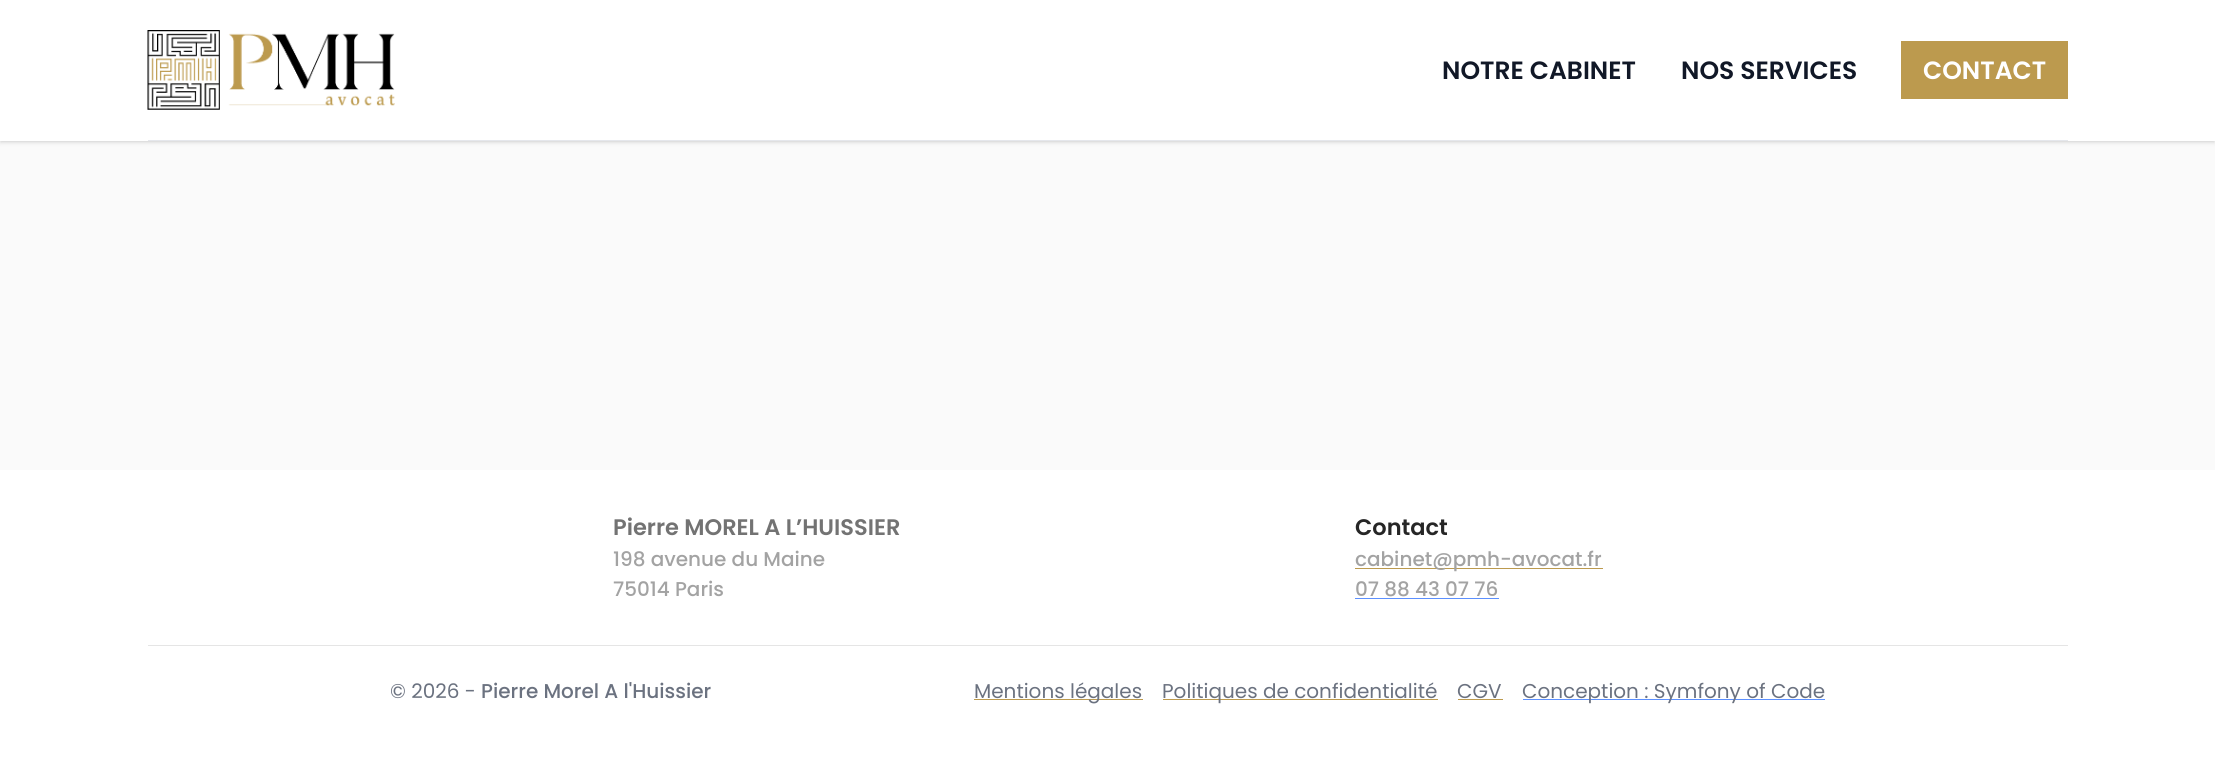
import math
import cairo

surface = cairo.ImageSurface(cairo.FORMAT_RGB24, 2215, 766)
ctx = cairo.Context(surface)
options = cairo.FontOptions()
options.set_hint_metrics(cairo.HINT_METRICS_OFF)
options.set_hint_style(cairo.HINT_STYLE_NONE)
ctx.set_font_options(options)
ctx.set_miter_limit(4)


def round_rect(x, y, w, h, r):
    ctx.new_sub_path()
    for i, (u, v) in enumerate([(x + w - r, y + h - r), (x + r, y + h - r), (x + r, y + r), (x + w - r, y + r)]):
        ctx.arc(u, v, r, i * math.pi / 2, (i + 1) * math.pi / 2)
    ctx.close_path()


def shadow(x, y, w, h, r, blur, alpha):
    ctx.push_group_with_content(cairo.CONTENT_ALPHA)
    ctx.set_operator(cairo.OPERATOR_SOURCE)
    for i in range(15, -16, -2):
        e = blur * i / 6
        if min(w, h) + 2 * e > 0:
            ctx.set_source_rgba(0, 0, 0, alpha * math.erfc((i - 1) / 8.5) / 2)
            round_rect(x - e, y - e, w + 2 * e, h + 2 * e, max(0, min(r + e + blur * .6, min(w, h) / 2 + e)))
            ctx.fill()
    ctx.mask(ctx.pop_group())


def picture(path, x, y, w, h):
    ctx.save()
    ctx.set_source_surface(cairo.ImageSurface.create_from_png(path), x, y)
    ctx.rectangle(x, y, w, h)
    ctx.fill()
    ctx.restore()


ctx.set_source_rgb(0.98, 0.98, 0.98)
ctx.paint()
ctx.set_source_rgb(0, 0, 0)
shadow(1, 3, 2213, 138, 0, 1, 0.1)
shadow(0, 1, 2215, 142, 0, 2, 0.1)
ctx.set_source_rgb(1, 1, 1)
ctx.rectangle(0, 0, 2215, 141)
ctx.fill()
ctx.set_source_rgb(0.898, 0.906, 0.922)
ctx.rectangle(148, 140, 1920, 1)
ctx.fill()
picture("img1.png", 147, 30, 248, 80)
ctx.select_font_face("Poppins SemiBold")
ctx.set_font_size(25)
ctx.set_source_rgb(0.067, 0.094, 0.153)
ctx.move_to(1442, 79)
ctx.show_text("NOTRE CABINET")
ctx.move_to(1681, 79)
ctx.show_text("NOS SERVICES")
ctx.set_source_rgb(0.737, 0.604, 0.306)
ctx.rectangle(1901, 41, 167, 58)
ctx.fill()
ctx.set_source_rgb(1, 1, 1)
ctx.move_to(1923, 79)
ctx.show_text("CONTACT")
ctx.rectangle(0, 470, 2215, 296)
ctx.fill()
ctx.set_font_size(22.5)
ctx.set_source_rgb(0.451, 0.451, 0.451)
ctx.move_to(613, 535)
ctx.show_text("Pierre MOREL A L’HUISSIER")
ctx.select_font_face("Poppins Medium")
ctx.set_font_size(20)
ctx.set_source_rgb(0.639, 0.639, 0.639)
ctx.move_to(613, 566)
ctx.show_text("198 avenue du Maine")
ctx.move_to(613, 596)
ctx.show_text("75014 Paris")
ctx.select_font_face("Poppins SemiBold")
ctx.set_font_size(22.5)
ctx.set_source_rgb(0.149, 0.149, 0.149)
ctx.move_to(1355, 535)
ctx.show_text("Contact")
ctx.set_source_rgb(0.737, 0.604, 0.306)
ctx.rectangle(1355, 568, 248, 1)
ctx.fill()
ctx.select_font_face("Poppins Medium")
ctx.set_font_size(20)
ctx.set_source_rgb(0.639, 0.639, 0.639)
ctx.move_to(1355, 566)
ctx.show_text("cabinet@pmh-avocat.fr")
ctx.move_to(1355, 596)
ctx.show_text("07 88 43 07 76")
ctx.set_source_rgb(0.361, 0.565, 1)
ctx.rectangle(1355, 598, 144, 1)
ctx.fill()
ctx.set_source_rgb(0.898, 0.898, 0.898)
ctx.rectangle(148, 645, 1920, 1)
ctx.fill()
ctx.select_font_face("Poppins")
ctx.set_source_rgb(0.42, 0.447, 0.502)
ctx.move_to(390, 698)
ctx.show_text("© 2026 -")
ctx.select_font_face("Poppins Medium")
ctx.move_to(481, 698)
ctx.show_text("Pierre Morel A l'Huissier")
ctx.set_source_rgb(0.737, 0.604, 0.306)
ctx.rectangle(974, 699, 169, 1)
ctx.fill()
ctx.select_font_face("Poppins")
ctx.set_source_rgb(0.42, 0.447, 0.502)
ctx.move_to(974, 698)
ctx.show_text("Mentions légales")
ctx.set_source_rgb(0.737, 0.604, 0.306)
ctx.rectangle(1163, 699, 275, 1)
ctx.fill()
ctx.set_source_rgb(0.42, 0.447, 0.502)
ctx.move_to(1162, 698)
ctx.show_text("Politiques de confidentialité")
ctx.move_to(1457, 698)
ctx.show_text("CGV")
ctx.set_source_rgb(0.737, 0.604, 0.306)
ctx.rectangle(1458, 699, 45, 1)
ctx.fill()
ctx.set_source_rgb(0.361, 0.565, 1)
ctx.rectangle(1523, 699, 302, 1)
ctx.fill()
ctx.set_source_rgb(0.42, 0.447, 0.502)
ctx.move_to(1522, 698)
ctx.show_text("Conception : Symfony of Code")
surface.write_to_png("page.png")
